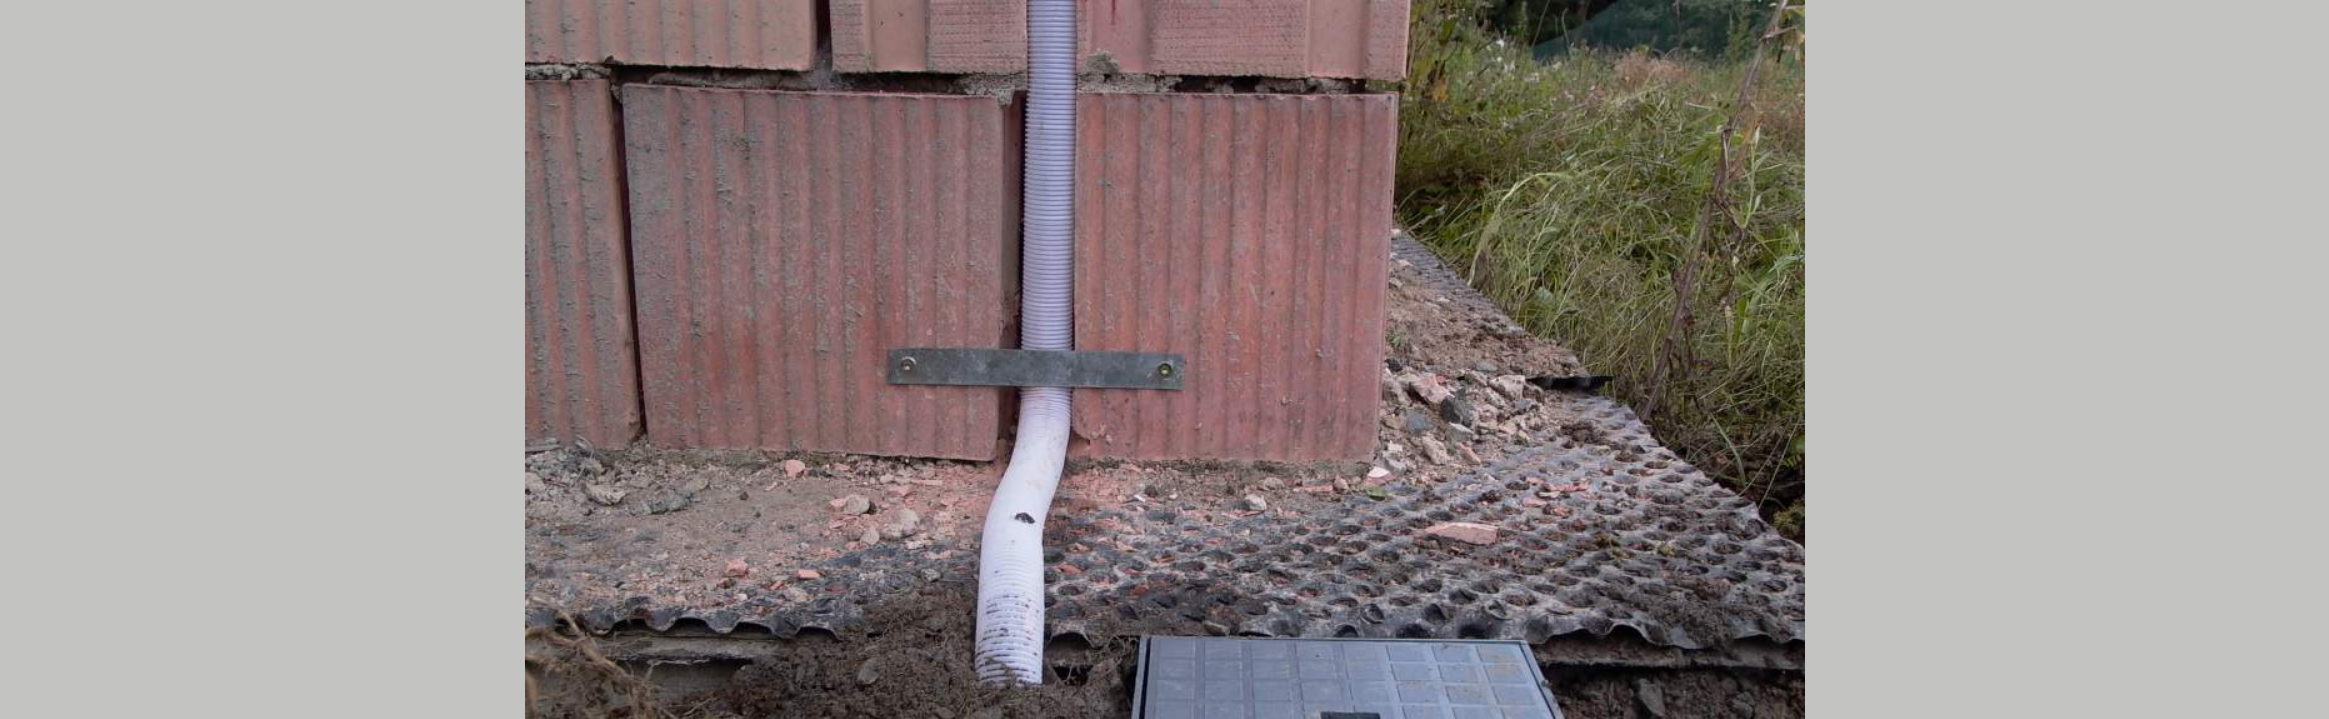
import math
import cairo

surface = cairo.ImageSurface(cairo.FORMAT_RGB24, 2329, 719)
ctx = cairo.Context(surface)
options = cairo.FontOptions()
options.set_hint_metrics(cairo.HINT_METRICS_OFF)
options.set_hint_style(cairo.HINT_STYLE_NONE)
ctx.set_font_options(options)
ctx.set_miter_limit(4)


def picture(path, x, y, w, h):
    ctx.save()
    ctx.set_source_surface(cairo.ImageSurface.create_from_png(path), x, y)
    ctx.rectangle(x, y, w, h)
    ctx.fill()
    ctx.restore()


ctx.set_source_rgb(0.765, 0.765, 0.761)
ctx.paint()
picture("img1.png", 525, 0, 1280, 719)
surface.write_to_png("page.png")
